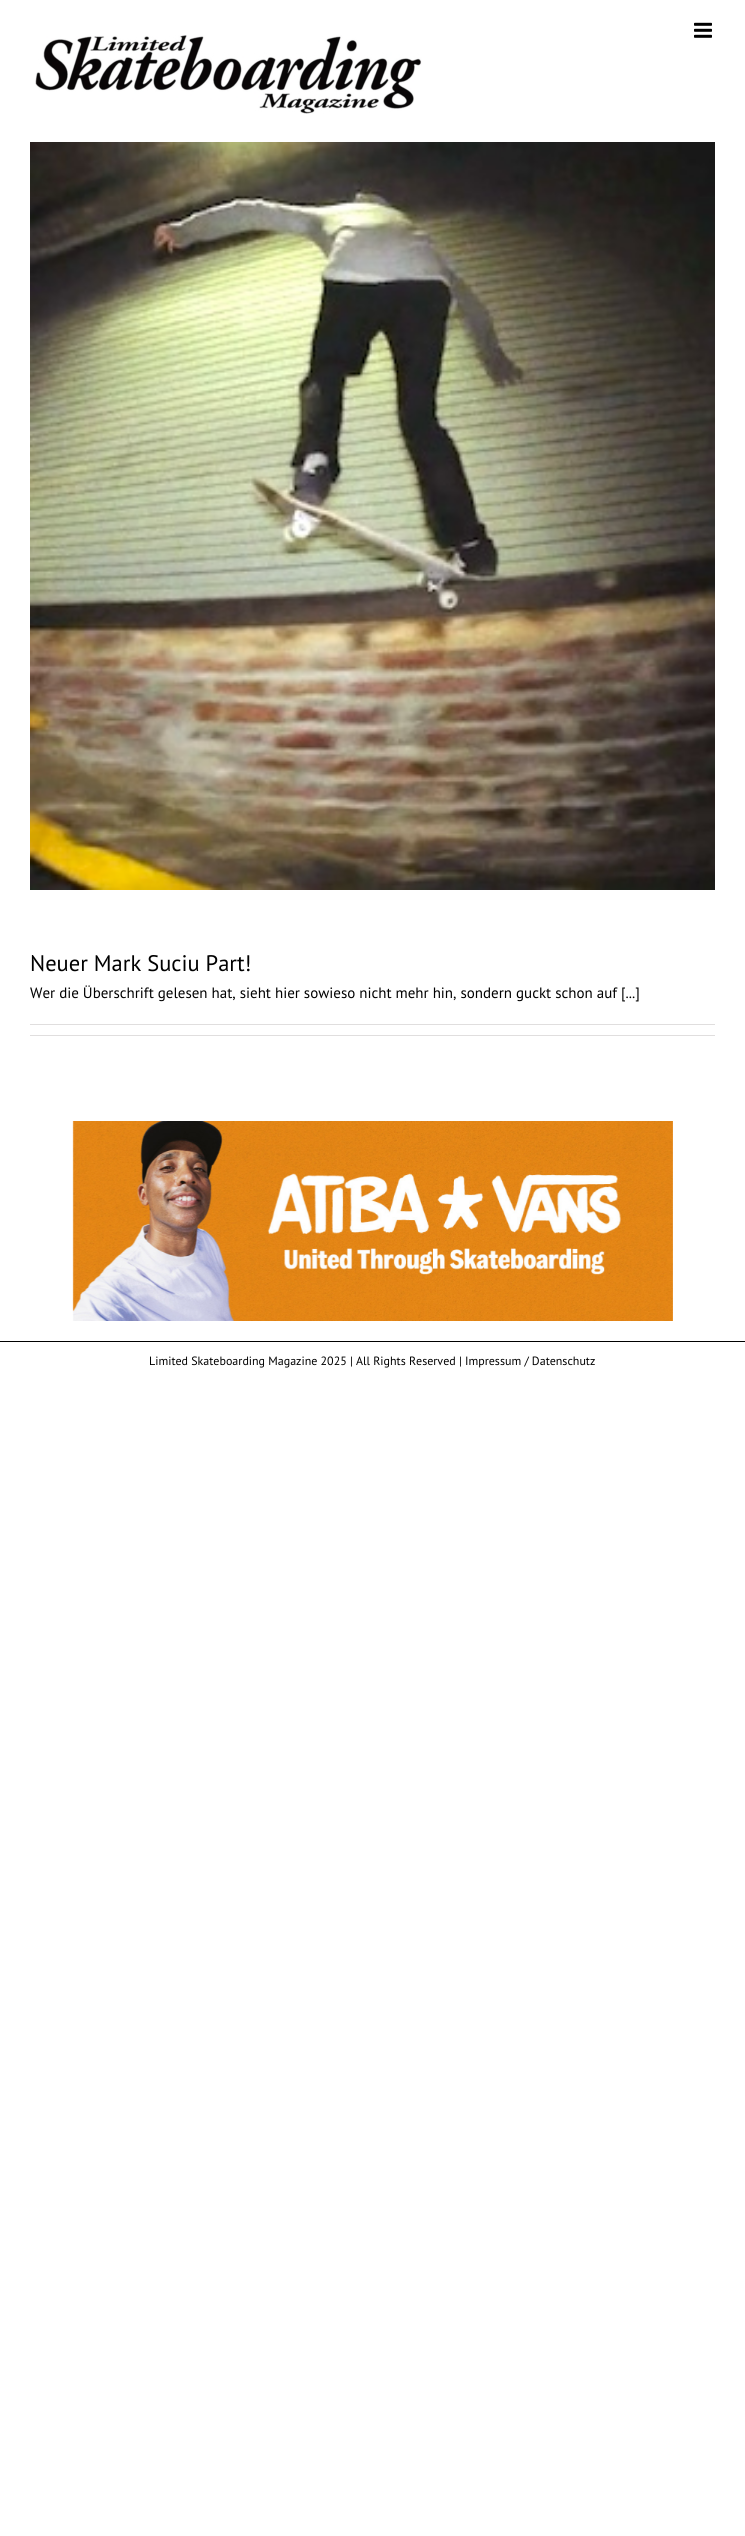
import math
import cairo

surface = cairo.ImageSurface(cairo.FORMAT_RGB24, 745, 2536)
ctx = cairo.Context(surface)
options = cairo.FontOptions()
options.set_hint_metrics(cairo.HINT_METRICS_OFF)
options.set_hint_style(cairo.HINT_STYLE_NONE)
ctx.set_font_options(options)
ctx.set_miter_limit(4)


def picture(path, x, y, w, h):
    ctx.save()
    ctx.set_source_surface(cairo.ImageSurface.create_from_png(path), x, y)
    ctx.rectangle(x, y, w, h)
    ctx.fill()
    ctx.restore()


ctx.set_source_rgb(1, 1, 1)
ctx.paint()
picture("img1.png", 694, 22, 18, 16)
picture("img2.png", 35, 35, 387, 79)
picture("img3.png", 30, 142, 685, 748)
ctx.select_font_face("PT Sans")
ctx.set_font_size(22.5)
ctx.set_source_rgb(0, 0, 0)
ctx.move_to(30, 971)
ctx.show_text("Neuer Mark Suciu Part!")
ctx.set_font_size(15)
ctx.move_to(30, 998)
ctx.show_text("Wer die Überschrift gelesen hat, sieht hier sowieso nicht mehr hin, sondern guckt schon auf [...]")
ctx.set_source_rgb(0.878, 0.871, 0.871)
ctx.rectangle(30, 1024, 685, 1)
ctx.fill()
ctx.rectangle(30, 1035, 685, 1)
ctx.fill()
picture("img4.png", 72, 1121, 601, 200)
ctx.set_source_rgb(0, 0, 0)
ctx.rectangle(0, 1341, 745, 1)
ctx.fill()
ctx.set_font_size(12)
ctx.move_to(149, 1365)
ctx.show_text("Limited Skateboarding Magazine 2025 | All Rights Reserved | Impressum / Datenschutz")
surface.write_to_png("page.png")
